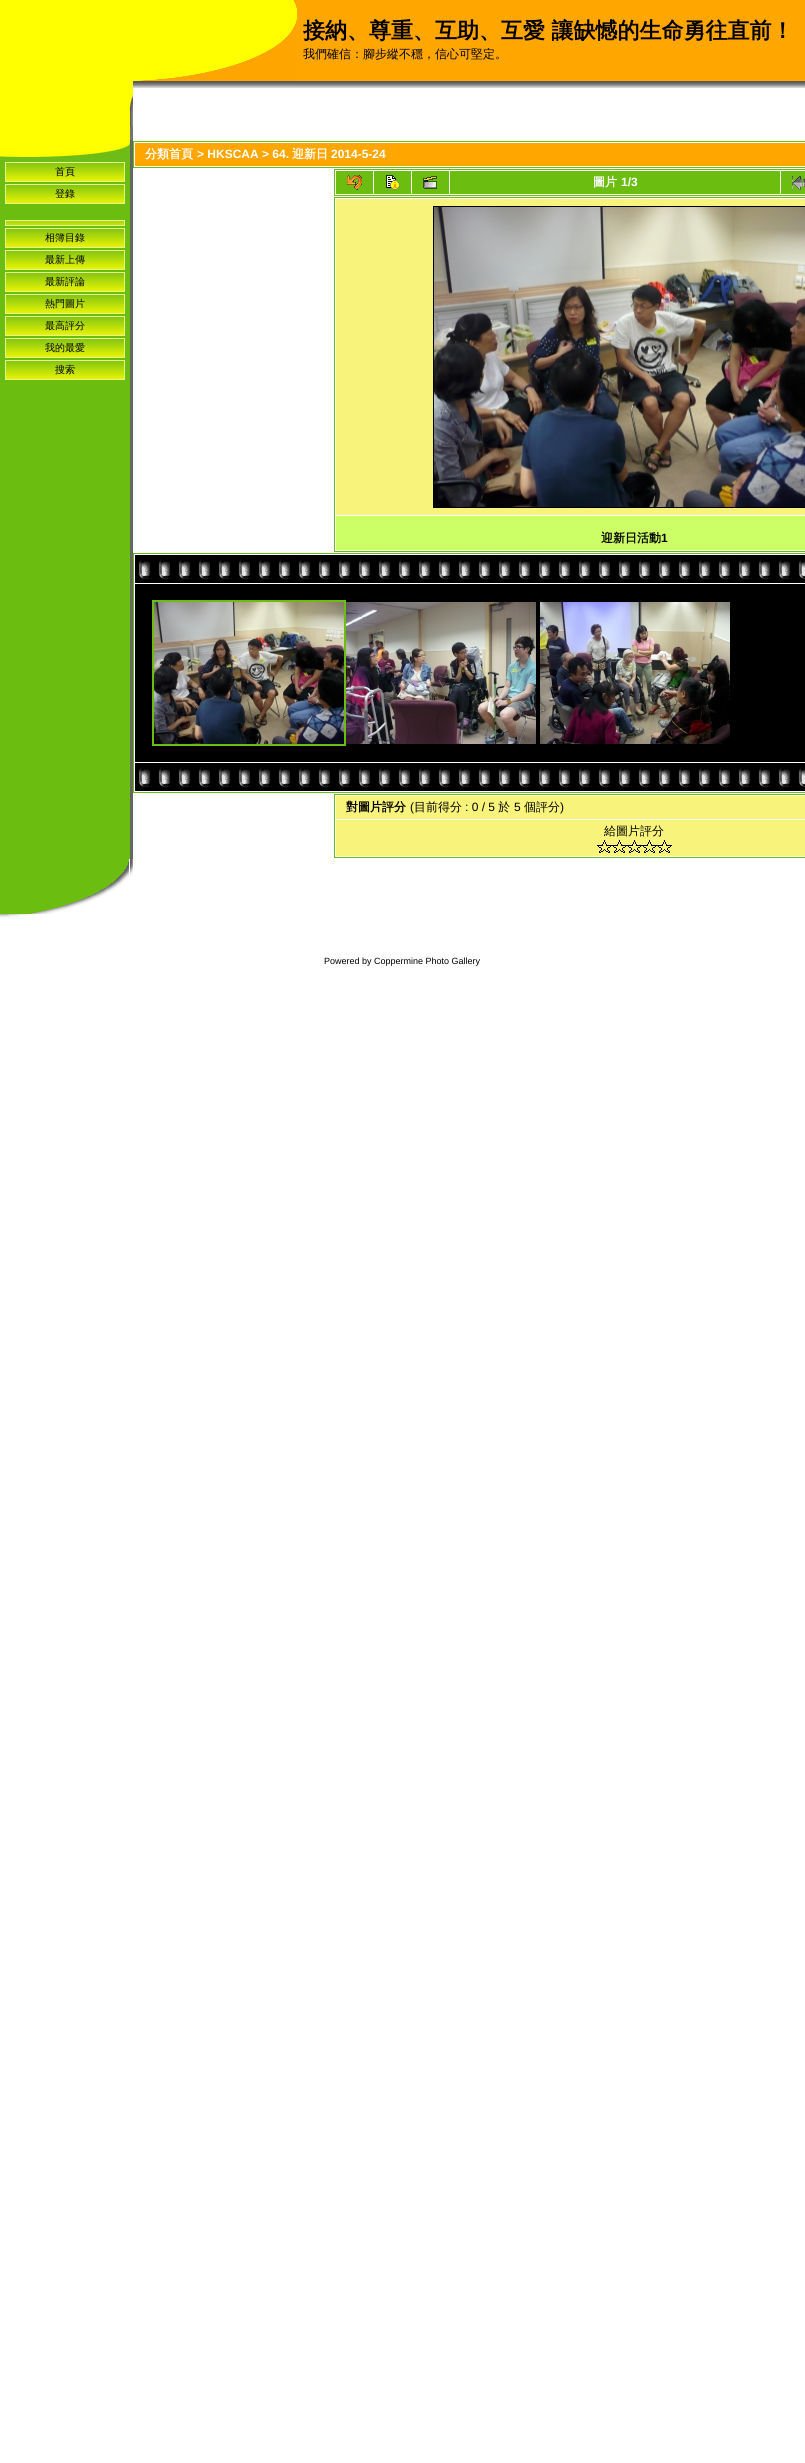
import math
import cairo

surface = cairo.ImageSurface(cairo.FORMAT_RGB24, 805, 2463)
ctx = cairo.Context(surface)
options = cairo.FontOptions()
options.set_hint_metrics(cairo.HINT_METRICS_OFF)
options.set_hint_style(cairo.HINT_STYLE_NONE)
ctx.set_font_options(options)
ctx.set_miter_limit(4)


def picture(path, x, y, w, h):
    ctx.save()
    ctx.set_source_surface(cairo.ImageSurface.create_from_png(path), x, y)
    ctx.rectangle(x, y, w, h)
    ctx.fill()
    ctx.restore()


ctx.set_source_rgb(1, 1, 1)
ctx.paint()
ctx.set_source_rgb(1, 1, 0)
ctx.rectangle(0, 0, 133, 81)
ctx.fill()
ctx.set_source_rgb(1, 0.651, 0)
ctx.rectangle(297, 0, 508, 81)
ctx.fill()
picture("img1.png", 133, 0, 164, 81)
ctx.select_font_face("WenQuanYi Zen Hei", cairo.FONT_SLANT_NORMAL, cairo.FONT_WEIGHT_BOLD)
ctx.set_font_size(22)
ctx.set_source_rgb(0, 0, 0)
ctx.move_to(303, 38)
ctx.show_text("接納、尊重、互助、互愛 讓缺憾的生命勇往直前！")
ctx.select_font_face("WenQuanYi Zen Hei Medium")
ctx.set_font_size(12)
ctx.move_to(303, 58)
ctx.show_text("我們確信：腳步縱不穩，信心可堅定。")
ctx.set_source_rgb(1, 1, 0)
ctx.rectangle(0, 81, 130, 59)
ctx.fill()
picture("img2.png", 130, 81, 3, 45)
picture("img3.png", 133, 81, 672, 7)
ctx.set_source_rgb(0.451, 0.451, 0.451)
ctx.rectangle(130, 126, 3, 14)
ctx.fill()
ctx.set_source_rgb(0.42, 0.745, 0.063)
ctx.rectangle(0, 162, 130, 697)
ctx.fill()
picture("img4.png", 0, 140, 24, 22)
picture("img5.png", 24, 140, 8, 22)
picture("img6.png", 32, 140, 98, 22)
picture("img7.png", 6, 163, 118, 18)
ctx.rectangle(5.5, 162.5, 119, 19)
ctx.set_source_rgb(0.906, 0.953, 0.549)
ctx.set_line_width(1)
ctx.stroke()
ctx.set_font_size(10)
ctx.set_source_rgb(0, 0, 0)
ctx.move_to(55, 175)
ctx.show_text("首頁")
picture("img7.png", 6, 185, 118, 18)
ctx.rectangle(5.5, 184.5, 119, 19)
ctx.set_source_rgb(0.906, 0.953, 0.549)
ctx.stroke()
ctx.set_source_rgb(0, 0, 0)
ctx.move_to(55, 197)
ctx.show_text("登錄")
picture("img8.png", 6, 221, 118, 4)
ctx.rectangle(5.5, 220.5, 119, 5)
ctx.set_source_rgb(0.906, 0.953, 0.549)
ctx.stroke()
picture("img7.png", 6, 229, 118, 18)
ctx.rectangle(5.5, 228.5, 119, 19)
ctx.stroke()
ctx.set_source_rgb(0, 0, 0)
ctx.move_to(45, 241)
ctx.show_text("相簿目錄")
picture("img7.png", 6, 251, 118, 18)
ctx.rectangle(5.5, 250.5, 119, 19)
ctx.set_source_rgb(0.906, 0.953, 0.549)
ctx.stroke()
ctx.set_source_rgb(0, 0, 0)
ctx.move_to(45, 263)
ctx.show_text("最新上傳")
picture("img7.png", 6, 273, 118, 18)
ctx.rectangle(5.5, 272.5, 119, 19)
ctx.set_source_rgb(0.906, 0.953, 0.549)
ctx.stroke()
ctx.set_source_rgb(0, 0, 0)
ctx.move_to(45, 285)
ctx.show_text("最新評論")
picture("img7.png", 6, 295, 118, 18)
ctx.rectangle(5.5, 294.5, 119, 19)
ctx.set_source_rgb(0.906, 0.953, 0.549)
ctx.stroke()
ctx.set_source_rgb(0, 0, 0)
ctx.move_to(45, 307)
ctx.show_text("熱門圖片")
picture("img7.png", 6, 317, 118, 18)
ctx.rectangle(5.5, 316.5, 119, 19)
ctx.set_source_rgb(0.906, 0.953, 0.549)
ctx.stroke()
ctx.set_source_rgb(0, 0, 0)
ctx.move_to(45, 329)
ctx.show_text("最高評分")
picture("img7.png", 6, 339, 118, 18)
ctx.rectangle(5.5, 338.5, 119, 19)
ctx.set_source_rgb(0.906, 0.953, 0.549)
ctx.stroke()
ctx.set_source_rgb(0, 0, 0)
ctx.move_to(45, 351)
ctx.show_text("我的最愛")
picture("img7.png", 6, 361, 118, 18)
ctx.rectangle(5.5, 360.5, 119, 19)
ctx.set_source_rgb(0.906, 0.953, 0.549)
ctx.stroke()
ctx.set_source_rgb(0, 0, 0)
ctx.move_to(55, 373)
ctx.show_text("搜索")
ctx.set_source_rgb(0.4, 0.4, 0.4)
ctx.rectangle(130, 140, 3, 719)
ctx.fill()
ctx.rectangle(133.5, 141.5, 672, 26)
ctx.set_source_rgb(0.42, 0.745, 0.063)
ctx.stroke()
ctx.set_source_rgb(1, 0.651, 0)
ctx.rectangle(135, 143, 670, 23)
ctx.fill()
ctx.select_font_face("WenQuanYi Zen Hei", cairo.FONT_SLANT_NORMAL, cairo.FONT_WEIGHT_BOLD)
ctx.set_font_size(12)
ctx.set_source_rgb(1, 1, 1)
ctx.move_to(145, 158)
ctx.show_text("分類首頁")
ctx.select_font_face("Liberation Sans", cairo.FONT_SLANT_NORMAL, cairo.FONT_WEIGHT_BOLD)
ctx.move_to(197, 158)
ctx.show_text("> HKSCAA > 64.")
ctx.select_font_face("WenQuanYi Zen Hei", cairo.FONT_SLANT_NORMAL, cairo.FONT_WEIGHT_BOLD)
ctx.move_to(292, 158)
ctx.show_text("迎新日")
ctx.select_font_face("Liberation Sans", cairo.FONT_SLANT_NORMAL, cairo.FONT_WEIGHT_BOLD)
ctx.move_to(331, 158)
ctx.show_text("2014-5-24")
ctx.rectangle(334.5, 169.5, 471, 26)
ctx.set_source_rgb(0.42, 0.745, 0.063)
ctx.stroke()
ctx.rectangle(336, 171, 37, 23)
ctx.fill()
picture("img9.png", 347, 175, 15, 15)
ctx.rectangle(374, 171, 37, 23)
ctx.fill()
picture("img10.png", 386, 175, 14, 15)
ctx.rectangle(412, 171, 37, 23)
ctx.fill()
picture("img11.png", 423, 176, 14, 13)
ctx.rectangle(450, 171, 330, 23)
ctx.fill()
ctx.select_font_face("WenQuanYi Zen Hei", cairo.FONT_SLANT_NORMAL, cairo.FONT_WEIGHT_BOLD)
ctx.set_source_rgb(1, 1, 1)
ctx.move_to(593, 186)
ctx.show_text("圖片")
ctx.select_font_face("Liberation Sans", cairo.FONT_SLANT_NORMAL, cairo.FONT_WEIGHT_BOLD)
ctx.move_to(621, 186)
ctx.show_text("1/3")
ctx.set_source_rgb(0.42, 0.745, 0.063)
ctx.rectangle(781, 171, 24, 23)
ctx.fill()
picture("img12.png", 792, 176, 13, 14)
ctx.rectangle(334.5, 197.5, 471, 354)
ctx.stroke()
ctx.set_source_rgb(0.969, 0.953, 0.482)
ctx.rectangle(336, 199, 469, 316)
ctx.fill()
ctx.rectangle(433.5, 206.5, 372, 301)
ctx.set_source_rgb(0, 0, 0)
ctx.stroke()
picture("img13.png", 434, 207, 371, 300)
ctx.set_source_rgb(0.8, 1, 0.4)
ctx.rectangle(336, 516, 469, 34)
ctx.fill()
ctx.select_font_face("WenQuanYi Zen Hei", cairo.FONT_SLANT_NORMAL, cairo.FONT_WEIGHT_BOLD)
ctx.set_source_rgb(0, 0, 0)
ctx.move_to(601, 542)
ctx.show_text("迎新日活動")
ctx.select_font_face("Liberation Sans", cairo.FONT_SLANT_NORMAL, cairo.FONT_WEIGHT_BOLD)
ctx.move_to(661, 542)
ctx.show_text("1")
ctx.rectangle(133.5, 553.5, 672, 239)
ctx.set_source_rgb(0.42, 0.745, 0.063)
ctx.stroke()
ctx.set_source_rgb(0, 0, 0)
ctx.rectangle(135, 555, 670, 28)
ctx.fill()
picture("img14.png", 138, 555, 667, 24)
ctx.rectangle(135, 584, 670, 178)
ctx.fill()
ctx.rectangle(153, 601, 192, 144)
ctx.set_source_rgb(0.42, 0.745, 0.063)
ctx.set_line_width(2)
ctx.stroke()
picture("img15.png", 154, 602, 190, 142)
picture("img16.png", 346, 602, 190, 142)
picture("img17.png", 540, 602, 190, 142)
ctx.set_source_rgb(0, 0, 0)
ctx.rectangle(135, 763, 670, 28)
ctx.fill()
picture("img14.png", 138, 763, 667, 24)
ctx.rectangle(334.5, 794.5, 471, 63)
ctx.set_source_rgb(0.42, 0.745, 0.063)
ctx.set_line_width(1)
ctx.stroke()
ctx.set_source_rgb(0.969, 0.953, 0.482)
ctx.rectangle(336, 796, 469, 23)
ctx.fill()
ctx.select_font_face("WenQuanYi Zen Hei", cairo.FONT_SLANT_NORMAL, cairo.FONT_WEIGHT_BOLD)
ctx.set_source_rgb(0, 0, 0)
ctx.move_to(346, 811)
ctx.show_text("對圖片評分")
ctx.select_font_face("Liberation Sans")
ctx.move_to(410, 811)
ctx.show_text("(")
ctx.select_font_face("WenQuanYi Zen Hei Medium")
ctx.move_to(414, 811)
ctx.show_text("目前得分")
ctx.select_font_face("Liberation Sans")
ctx.move_to(465, 811)
ctx.show_text(": 0 / 5")
ctx.select_font_face("WenQuanYi Zen Hei Medium")
ctx.move_to(498, 811)
ctx.show_text("於")
ctx.select_font_face("Liberation Sans")
ctx.move_to(514, 811)
ctx.show_text("5")
ctx.select_font_face("WenQuanYi Zen Hei Medium")
ctx.move_to(524, 811)
ctx.show_text("個評分")
ctx.select_font_face("Liberation Sans")
ctx.move_to(560, 811)
ctx.show_text(")")
ctx.set_source_rgb(0.969, 0.953, 0.482)
ctx.rectangle(336, 820, 469, 36)
ctx.fill()
ctx.select_font_face("WenQuanYi Zen Hei Medium")
ctx.set_source_rgb(0, 0, 0)
ctx.move_to(604, 835)
ctx.show_text("給圖片評分")
picture("img18.png", 597, 840, 15, 13)
picture("img18.png", 612, 840, 15, 13)
picture("img18.png", 627, 840, 15, 13)
picture("img18.png", 642, 840, 15, 13)
picture("img18.png", 657, 840, 15, 13)
ctx.set_source_rgb(0.42, 0.745, 0.063)
ctx.rectangle(0, 859, 3, 55)
ctx.fill()
picture("img19.png", 3, 859, 126, 55)
picture("img20.png", 130, 859, 3, 17)
picture("img21.png", 0, 914, 4, 4)
picture("img22.png", 4, 914, 28, 4)
ctx.select_font_face("Liberation Sans")
ctx.set_font_size(9)
ctx.set_source_rgb(0, 0, 0)
ctx.move_to(324, 964)
ctx.show_text("Powered by Coppermine Photo Gallery")
surface.write_to_png("page.png")
